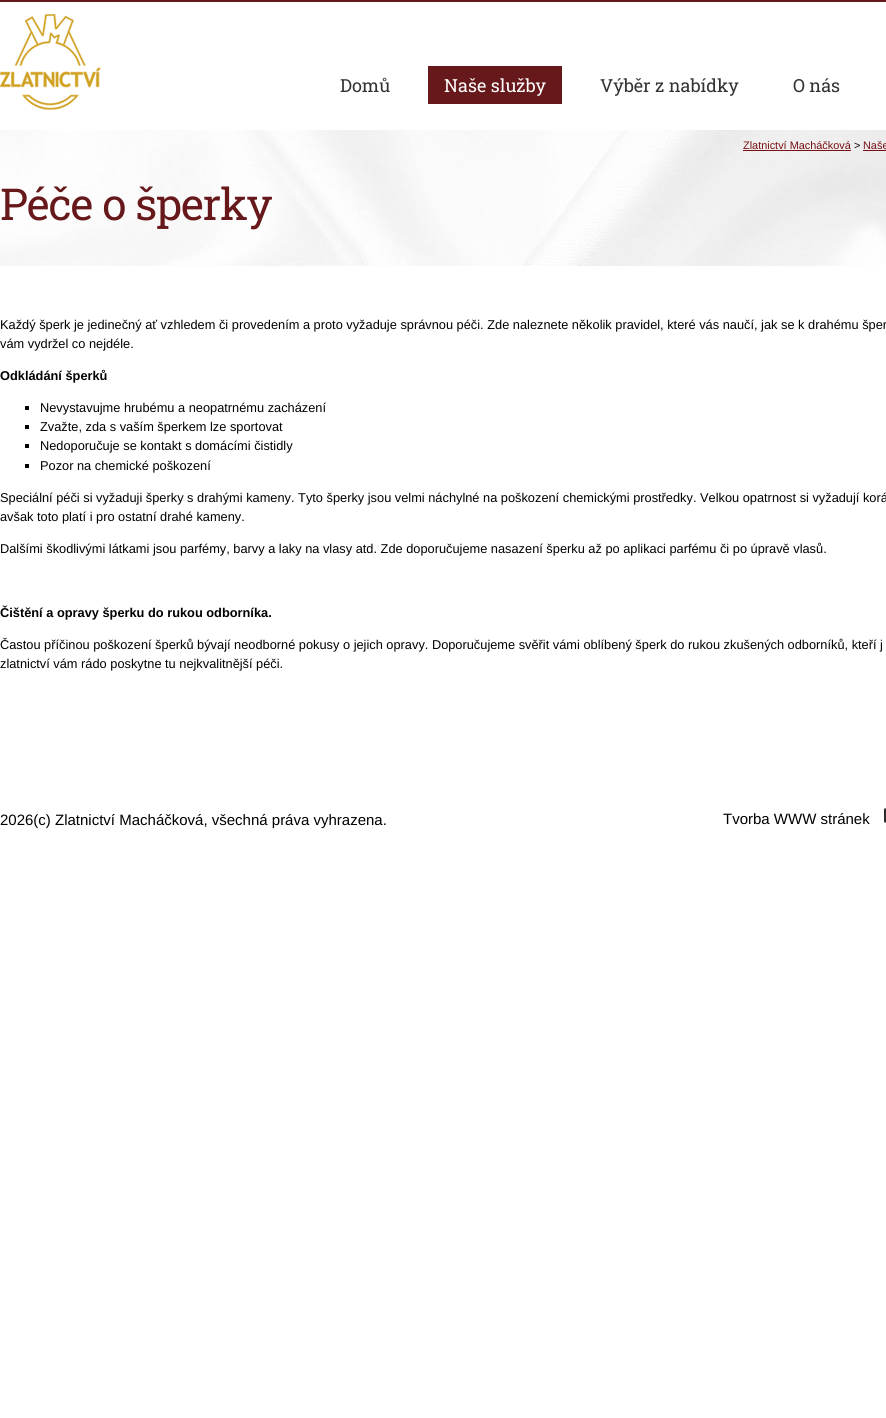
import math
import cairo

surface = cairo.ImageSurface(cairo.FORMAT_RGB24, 886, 1418)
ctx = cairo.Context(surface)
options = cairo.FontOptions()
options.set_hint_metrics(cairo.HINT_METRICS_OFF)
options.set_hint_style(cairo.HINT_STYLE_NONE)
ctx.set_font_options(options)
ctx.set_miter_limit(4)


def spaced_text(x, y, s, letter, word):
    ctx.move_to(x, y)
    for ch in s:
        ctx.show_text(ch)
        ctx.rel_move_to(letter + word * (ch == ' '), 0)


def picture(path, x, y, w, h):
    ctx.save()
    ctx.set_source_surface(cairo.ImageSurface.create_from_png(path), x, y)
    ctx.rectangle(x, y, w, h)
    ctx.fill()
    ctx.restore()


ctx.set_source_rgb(1, 1, 1)
ctx.paint()
picture("img1.png", 0, 130, 886, 136)
ctx.set_source_rgb(0.404, 0.094, 0.106)
ctx.rectangle(0, 0, 886, 2)
ctx.fill()
picture("img2.png", 0, 14, 101, 96)
ctx.select_font_face("Roboto Slab")
ctx.set_font_size(18)
ctx.set_source_rgb(0.2, 0.2, 0.2)
ctx.move_to(340, 92)
ctx.show_text("Domů")
ctx.set_source_rgb(0.404, 0.094, 0.106)
ctx.rectangle(428, 66, 134, 38)
ctx.fill()
ctx.set_source_rgb(1, 1, 1)
ctx.move_to(444, 92)
ctx.show_text("Naše služby")
ctx.set_source_rgb(0.2, 0.2, 0.2)
ctx.move_to(600, 92)
ctx.show_text("Výběr z nabídky")
ctx.move_to(793, 92)
ctx.show_text("O nás")
ctx.select_font_face("Liberation Sans")
ctx.set_font_size(10.9)
ctx.set_source_rgb(0.471, 0.067, 0.078)
ctx.move_to(743, 149)
ctx.show_text("Zlatnictví Macháčková")
ctx.rectangle(743, 150, 108, 1)
ctx.fill()
ctx.set_source_rgb(0, 0, 0)
ctx.move_to(854, 149)
ctx.show_text(">")
ctx.set_source_rgb(0.471, 0.067, 0.078)
ctx.move_to(863, 149)
ctx.show_text("Naše")
ctx.rectangle(863, 150, 23, 1)
ctx.fill()
ctx.select_font_face("Roboto Slab")
ctx.set_font_size(44)
ctx.set_source_rgb(0.404, 0.094, 0.106)
spaced_text(0, 220, "Péče o šperky", -1, 0)
ctx.select_font_face("Liberation Sans")
ctx.set_font_size(12.8)
ctx.set_source_rgb(0, 0, 0)
ctx.move_to(0, 329)
ctx.show_text("Každý šperk je jedinečný ať vzhledem či provedením a proto vyžaduje správnou péči. Zde naleznete několik pravidel, které vás naučí, jak se k drahému šper")
ctx.move_to(0, 348)
ctx.show_text("vám vydržel co nejdéle.")
ctx.select_font_face("Liberation Sans", cairo.FONT_SLANT_NORMAL, cairo.FONT_WEIGHT_BOLD)
ctx.move_to(0, 380)
ctx.show_text("Odkládání šperků")
ctx.rectangle(25, 406, 4, 4)
ctx.fill()
ctx.select_font_face("Liberation Sans")
ctx.move_to(40, 412)
ctx.show_text("Nevystavujme hrubému a neopatrnému zacházení")
ctx.rectangle(25, 425, 4, 4)
ctx.fill()
ctx.move_to(40, 431)
ctx.show_text("Zvažte, zda s vaším šperkem lze sportovat")
ctx.rectangle(25, 444, 4, 4)
ctx.fill()
ctx.move_to(40, 450)
ctx.show_text("Nedoporučuje se kontakt s domácími čistidly")
ctx.rectangle(25, 464, 4, 4)
ctx.fill()
ctx.move_to(40, 470)
ctx.show_text("Pozor na chemické poškození")
ctx.move_to(0, 502)
ctx.show_text("Speciální péči si vyžaduji šperky s drahými kameny. Tyto šperky jsou velmi náchylné na poškození chemickými prostředky. Velkou opatrnost si vyžadují korá")
ctx.move_to(0, 521)
ctx.show_text("avšak toto platí i pro ostatní drahé kameny.")
ctx.move_to(0, 553)
ctx.show_text("Dalšími škodlivými látkami jsou parfémy, barvy a laky na vlasy atd. Zde doporučujeme nasazení šperku až po aplikaci parfému či po úpravě vlasů.")
ctx.select_font_face("Liberation Sans", cairo.FONT_SLANT_NORMAL, cairo.FONT_WEIGHT_BOLD)
ctx.move_to(0, 617)
ctx.show_text("Čištění a opravy šperku do rukou odborníka.")
ctx.select_font_face("Liberation Sans")
ctx.move_to(0, 649)
ctx.show_text("Častou příčinou poškození šperků bývají neodborné pokusy o jejich opravy. Doporučujeme svěřit vámi oblíbený šperk do rukou zkušených odborníků, kteří j")
ctx.move_to(0, 668)
ctx.show_text("zlatnictví vám rádo poskytne tu nejkvalitnější péči.")
ctx.set_font_size(15)
ctx.move_to(0, 825)
ctx.show_text("2026(c) Zlatnictví Macháčková, všechná práva vyhrazena.")
ctx.move_to(723, 824)
ctx.show_text("Tvorba WWW stránek")
picture("img3.png", 884, 808, 2, 15)
surface.write_to_png("page.png")
